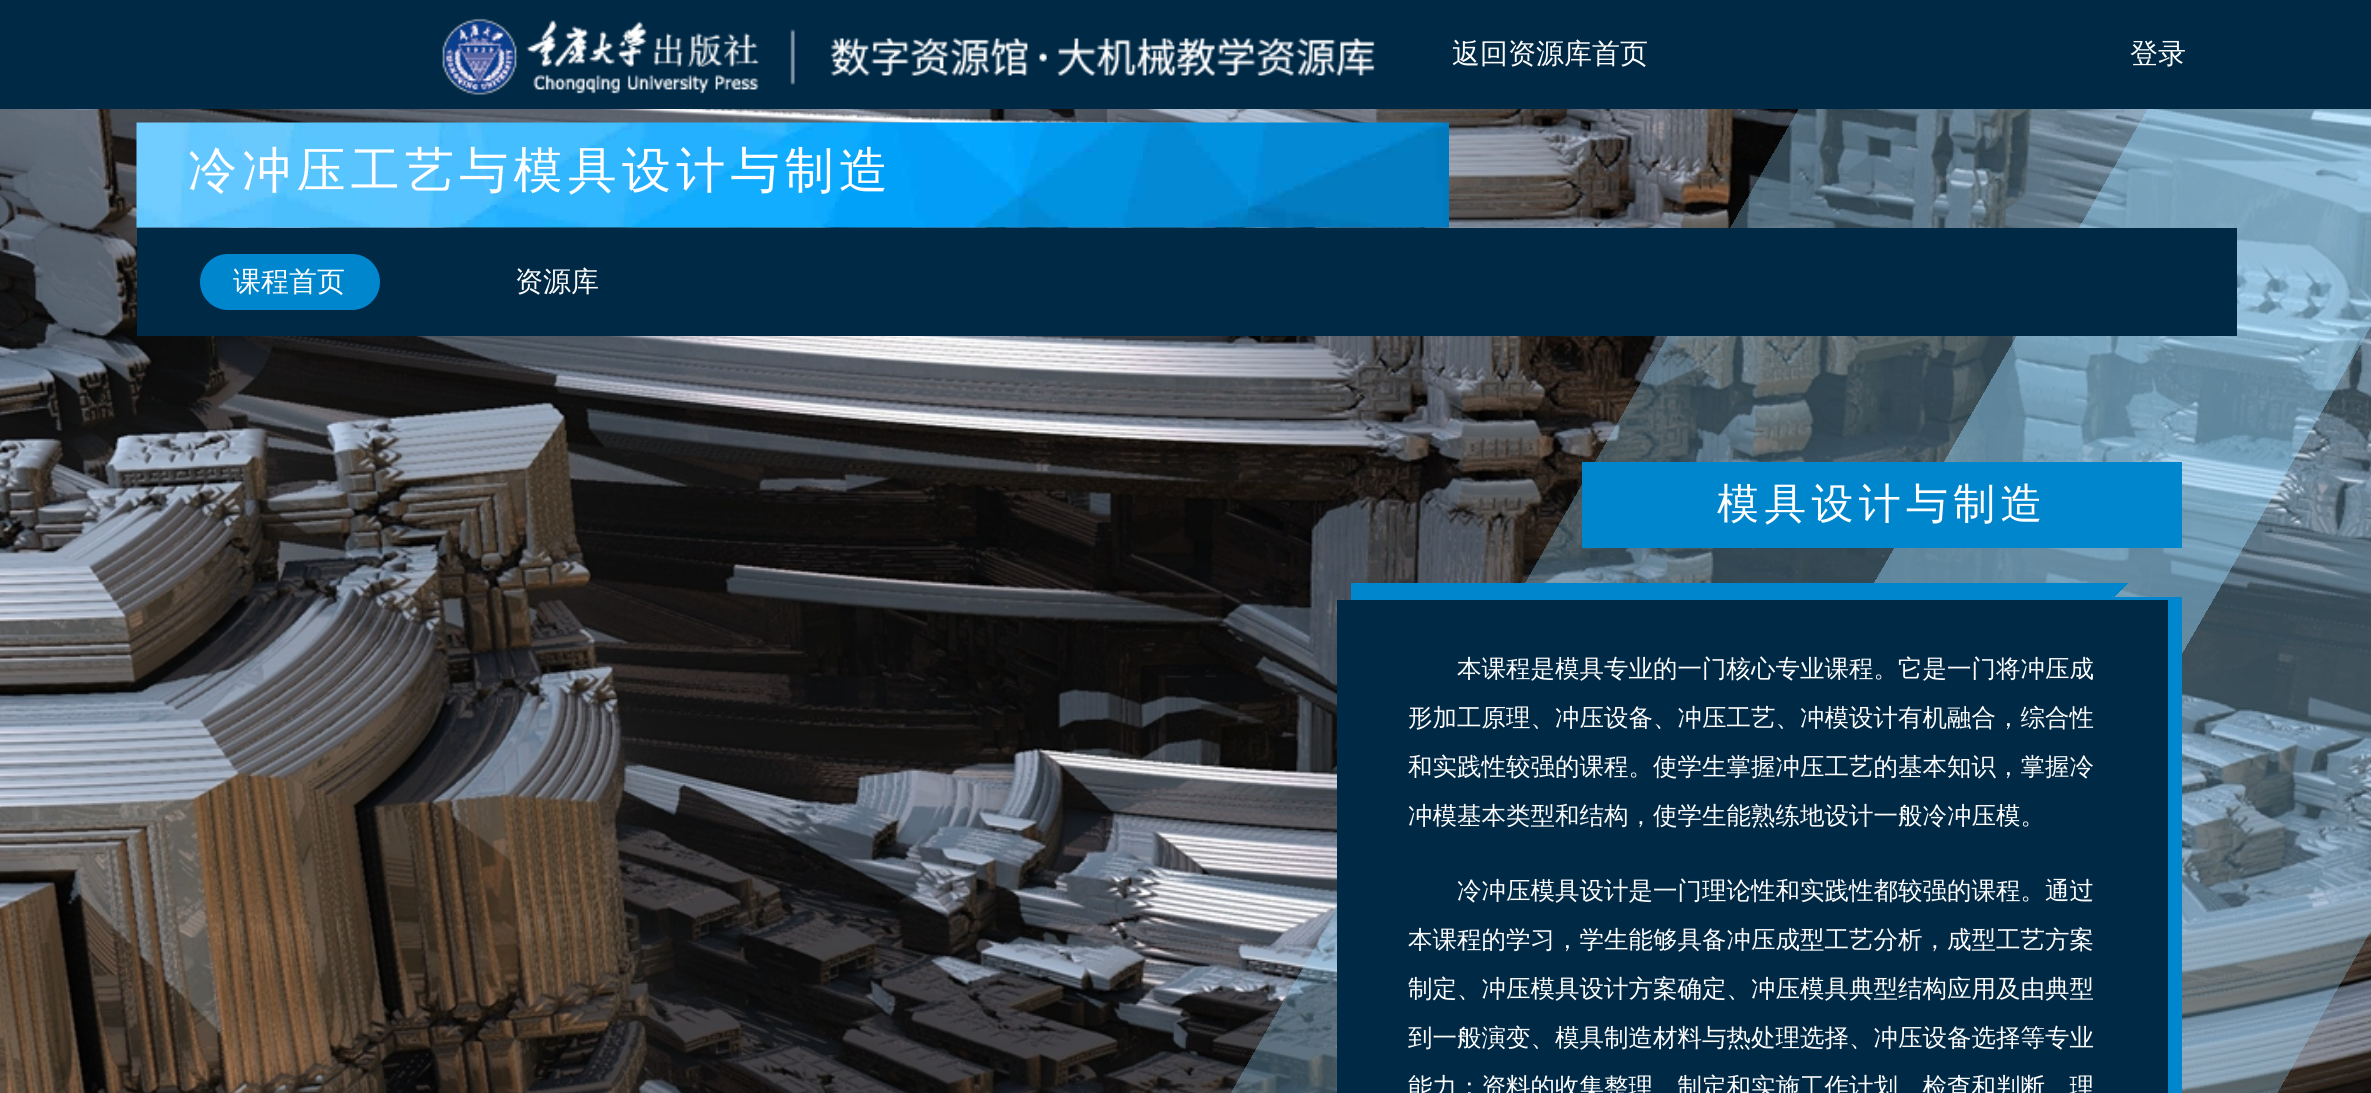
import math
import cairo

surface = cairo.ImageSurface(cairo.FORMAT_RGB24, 2371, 1093)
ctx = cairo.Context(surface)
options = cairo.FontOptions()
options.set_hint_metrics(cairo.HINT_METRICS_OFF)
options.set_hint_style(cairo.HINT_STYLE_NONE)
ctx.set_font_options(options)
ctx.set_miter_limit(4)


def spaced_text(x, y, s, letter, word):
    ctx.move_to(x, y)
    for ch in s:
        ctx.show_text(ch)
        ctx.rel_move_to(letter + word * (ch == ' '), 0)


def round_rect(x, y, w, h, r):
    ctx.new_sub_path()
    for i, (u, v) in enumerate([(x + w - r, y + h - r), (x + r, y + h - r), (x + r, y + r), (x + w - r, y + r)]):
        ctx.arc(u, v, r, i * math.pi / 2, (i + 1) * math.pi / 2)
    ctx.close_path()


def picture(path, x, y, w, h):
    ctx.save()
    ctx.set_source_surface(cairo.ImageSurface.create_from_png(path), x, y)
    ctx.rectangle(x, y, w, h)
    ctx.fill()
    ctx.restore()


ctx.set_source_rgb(1, 1, 1)
ctx.paint()
picture("img1.png", 0, 109, 2371, 984)
ctx.set_source_rgb(0, 0.161, 0.275)
ctx.rectangle(0, 0, 2371, 109)
ctx.fill()
picture("img2.png", 442, 18, 933, 77)
ctx.select_font_face("WenQuanYi Zen Hei Medium")
ctx.set_font_size(28)
ctx.set_source_rgb(0.996, 0.996, 0.996)
ctx.move_to(1452, 63)
ctx.show_text("返回资源库首页")
ctx.move_to(2130, 63)
ctx.show_text("登录")
picture("img3.png", 136, 122, 1313, 106)
ctx.set_font_size(49)
spaced_text(188, 187, "冷冲压工艺与模具设计与制造", 5.25, 0)
ctx.set_source_rgb(0, 0.161, 0.275)
ctx.rectangle(137, 228, 2100, 108)
ctx.fill()
ctx.set_source_rgb(0, 0.525, 0.804)
round_rect(200, 254, 180, 56, 28)
ctx.fill()
ctx.set_font_size(28)
ctx.set_source_rgb(0.996, 0.996, 0.996)
ctx.move_to(233, 291)
ctx.show_text("课程首页")
ctx.move_to(515, 291)
ctx.show_text("资源库")
ctx.set_source_rgb(0, 0.525, 0.804)
ctx.rectangle(1582, 462, 600, 86)
ctx.fill()
ctx.set_font_size(42)
ctx.set_source_rgb(0.996, 0.996, 0.996)
spaced_text(1717, 518, "模具设计与制造", 5.25, 0)
ctx.set_font_size(24.5)
ctx.move_to(1457, 677)
ctx.show_text("本课程是模具专业的一门核心专业课程。它是一门将冲压成")
ctx.move_to(1408, 726)
ctx.show_text("形加工原理、冲压设备、冲压工艺、冲模设计有机融合，综合性")
ctx.move_to(1408, 775)
ctx.show_text("和实践性较强的课程。使学生掌握冲压工艺的基本知识，掌握冷")
ctx.move_to(1408, 824)
ctx.show_text("冲模基本类型和结构，使学生能熟练地设计一般冷冲压模。")
ctx.move_to(1457, 899)
ctx.show_text("冷冲压模具设计是一门理论性和实践性都较强的课程。通过")
ctx.move_to(1408, 948)
ctx.show_text("本课程的学习，学生能够具备冲压成型工艺分析，成型工艺方案")
ctx.move_to(1408, 997)
ctx.show_text("制定、冲压模具设计方案确定、冲压模具典型结构应用及由典型")
ctx.move_to(1408, 1046)
ctx.show_text("到一般演变、模具制造材料与热处理选择、冲压设备选择等专业")
ctx.move_to(1408, 1095)
ctx.show_text("能力；资料的收集整理、制定和实施工作计划、检查和判断、理")
surface.write_to_png("page.png")
